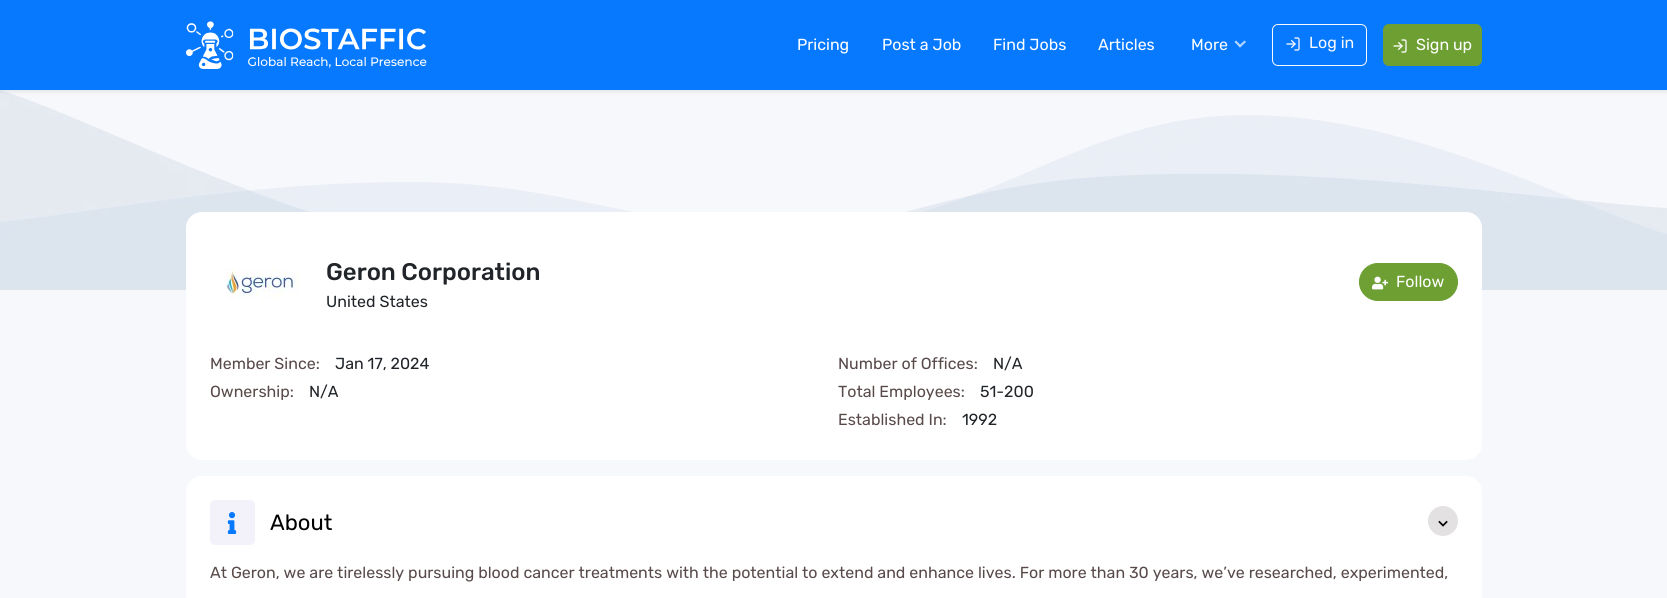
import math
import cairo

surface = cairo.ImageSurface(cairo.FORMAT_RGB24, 1667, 598)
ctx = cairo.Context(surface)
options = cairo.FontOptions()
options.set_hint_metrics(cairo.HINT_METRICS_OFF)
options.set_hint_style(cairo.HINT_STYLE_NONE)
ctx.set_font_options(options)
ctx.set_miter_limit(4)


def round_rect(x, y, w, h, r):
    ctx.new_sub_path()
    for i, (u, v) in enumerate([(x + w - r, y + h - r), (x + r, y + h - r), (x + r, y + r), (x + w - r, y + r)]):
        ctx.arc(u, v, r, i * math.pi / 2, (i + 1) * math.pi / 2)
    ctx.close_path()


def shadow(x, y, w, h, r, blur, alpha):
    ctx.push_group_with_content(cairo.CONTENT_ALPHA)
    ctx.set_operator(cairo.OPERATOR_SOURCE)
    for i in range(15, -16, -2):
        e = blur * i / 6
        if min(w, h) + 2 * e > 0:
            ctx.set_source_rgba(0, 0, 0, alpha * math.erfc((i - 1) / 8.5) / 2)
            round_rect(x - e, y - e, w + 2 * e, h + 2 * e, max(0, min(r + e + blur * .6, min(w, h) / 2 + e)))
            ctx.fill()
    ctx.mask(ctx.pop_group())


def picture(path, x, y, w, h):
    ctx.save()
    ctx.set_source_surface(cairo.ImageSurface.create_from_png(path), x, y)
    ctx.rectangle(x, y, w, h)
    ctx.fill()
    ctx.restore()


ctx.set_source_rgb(0.965, 0.969, 0.988)
ctx.paint()
picture("img4.png", 0, 90, 1667, 200)
ctx.set_source_rgb(0, 0, 0)
shadow(0, 2, 1667, 90, 0, 2, 0.07)
ctx.set_source_rgb(0.031, 0.475, 0.996)
ctx.rectangle(0, 0, 1667, 90)
ctx.fill()
picture("img1.png", 186, 21, 241, 48)
ctx.select_font_face("Rubik")
ctx.set_font_size(16)
ctx.set_source_rgb(1, 1, 1)
ctx.move_to(797, 50)
ctx.show_text("Pricing")
ctx.move_to(882, 50)
ctx.show_text("Post a Job")
ctx.move_to(993, 50)
ctx.show_text("Find Jobs")
ctx.move_to(1098, 50)
ctx.show_text("Articles")
ctx.move_to(1191, 50)
ctx.show_text("More")
ctx.set_source_rgb(0.71, 0.843, 1)
ctx.new_path()
ctx.move_to(1246, 42)
ctx.line_to(1240, 47.5)
ctx.line_to(1238.5, 46)
ctx.line_to(1244.5, 40.5)
ctx.close_path()
ctx.fill()
ctx.new_path()
ctx.move_to(1241.5, 46)
ctx.line_to(1240, 47.5)
ctx.line_to(1234.5, 42)
ctx.line_to(1236, 40.5)
ctx.close_path()
ctx.fill()
round_rect(1272.5, 24.5, 94, 41, 5.5)
ctx.set_source_rgb(0.973, 0.976, 0.98)
ctx.set_line_width(1)
ctx.stroke()
picture("img2.png", 1286, 37, 14, 14)
ctx.move_to(1309, 48)
ctx.show_text("Log in")
ctx.set_source_rgb(0.427, 0.624, 0.2)
round_rect(1383.5, 24.5, 98, 41, 5.5)
ctx.fill_preserve()
ctx.stroke()
picture("img3.png", 1393, 39, 14, 14)
ctx.set_source_rgb(1, 1, 1)
ctx.move_to(1416, 50)
ctx.show_text("Sign up")
round_rect(186, 212, 1296, 248, 16)
ctx.fill()
picture("img5.png", 226, 268, 75, 32)
ctx.select_font_face("Rubik Medium")
ctx.set_font_size(24)
ctx.set_source_rgb(0.129, 0.145, 0.161)
ctx.move_to(326, 280)
ctx.show_text("Geron Corporation")
ctx.select_font_face("Rubik")
ctx.set_font_size(16)
ctx.move_to(326, 307)
ctx.show_text("United States")
ctx.set_source_rgb(0.427, 0.624, 0.2)
round_rect(1359.5, 263.5, 98, 37, 18.5)
ctx.fill_preserve()
ctx.stroke()
picture("img6.png", 1372, 276, 16, 14)
ctx.set_source_rgb(1, 1, 1)
ctx.move_to(1396, 287)
ctx.show_text("Follow")
ctx.set_source_rgb(0.349, 0.29, 0.29)
ctx.move_to(210, 369)
ctx.show_text("Member Since:")
ctx.set_source_rgb(0.129, 0.145, 0.161)
ctx.move_to(335, 369)
ctx.show_text("Jan 17, 2024")
ctx.set_source_rgb(0.349, 0.29, 0.29)
ctx.move_to(210, 397)
ctx.show_text("Ownership:")
ctx.set_source_rgb(0.129, 0.145, 0.161)
ctx.move_to(309, 397)
ctx.show_text("N/A")
ctx.set_source_rgb(0.349, 0.29, 0.29)
ctx.move_to(838, 369)
ctx.show_text("Number of Offices:")
ctx.set_source_rgb(0.129, 0.145, 0.161)
ctx.move_to(993, 369)
ctx.show_text("N/A")
ctx.set_source_rgb(0.349, 0.29, 0.29)
ctx.move_to(838, 397)
ctx.show_text("Total Employees:")
ctx.set_source_rgb(0.129, 0.145, 0.161)
ctx.move_to(980, 397)
ctx.show_text("51-200")
ctx.set_source_rgb(0.349, 0.29, 0.29)
ctx.move_to(838, 425)
ctx.show_text("Established In:")
ctx.set_source_rgb(0.129, 0.145, 0.161)
ctx.move_to(962, 425)
ctx.show_text("1992")
ctx.set_source_rgb(1, 1, 1)
round_rect(186, 476, 1296, 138, 16)
ctx.fill()
ctx.set_source_rgb(0.953, 0.949, 0.98)
round_rect(210, 500, 45, 45, 5)
ctx.fill()
picture("img7.png", 227, 512, 10, 22)
ctx.set_font_size(22)
ctx.set_source_rgb(0, 0, 0)
ctx.move_to(270, 530)
ctx.show_text("About")
ctx.set_source_rgb(0.89, 0.882, 0.882)
ctx.new_path()
ctx.arc(1443, 521, 15, 0, 2 * math.pi)
ctx.fill()
picture("img8.png", 1438, 520, 10, 7)
ctx.set_font_size(16)
ctx.set_source_rgb(0.349, 0.29, 0.29)
ctx.move_to(210, 578)
ctx.show_text("At Geron, we are tirelessly pursuing blood cancer treatments with the potential to extend and enhance lives. For more than 30 years, we’ve researched, experimented,")
surface.write_to_png("page.png")
